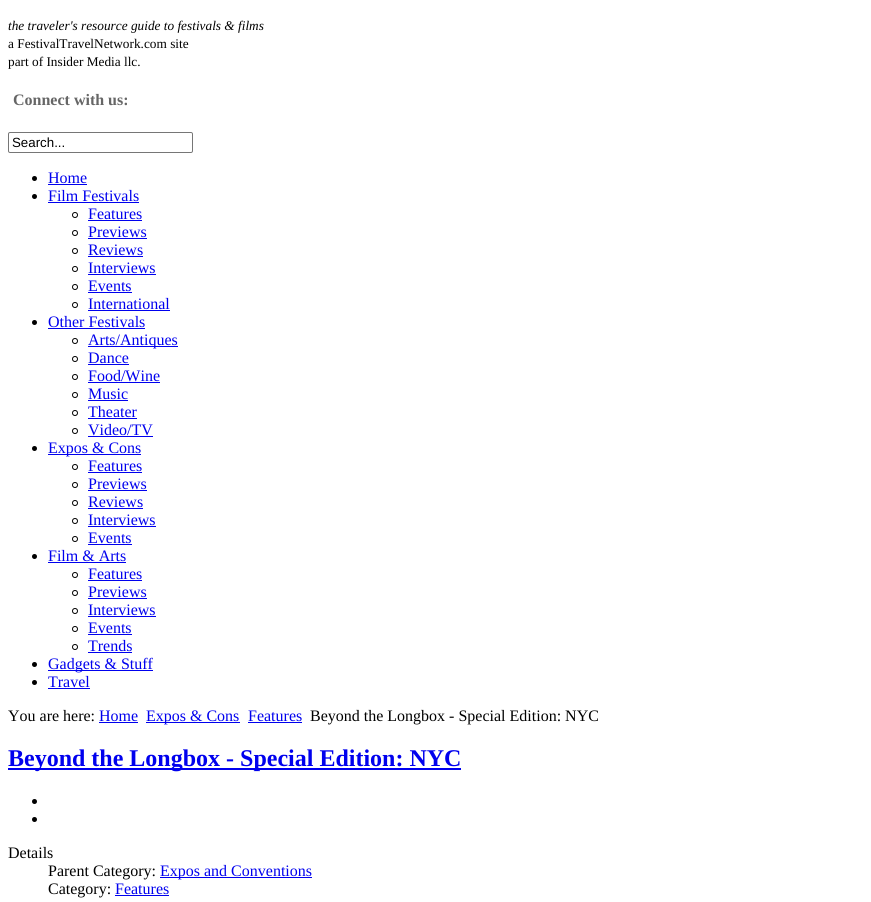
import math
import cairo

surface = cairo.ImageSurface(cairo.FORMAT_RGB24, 871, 902)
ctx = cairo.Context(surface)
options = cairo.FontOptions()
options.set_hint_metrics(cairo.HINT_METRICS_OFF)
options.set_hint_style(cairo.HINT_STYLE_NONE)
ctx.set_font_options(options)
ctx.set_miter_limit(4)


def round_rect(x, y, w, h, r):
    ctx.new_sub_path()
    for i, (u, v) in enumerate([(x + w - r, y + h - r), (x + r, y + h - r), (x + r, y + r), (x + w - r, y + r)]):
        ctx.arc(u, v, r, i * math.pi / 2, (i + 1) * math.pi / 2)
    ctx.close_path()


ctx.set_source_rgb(1, 1, 1)
ctx.paint()
ctx.select_font_face("Liberation Serif", cairo.FONT_SLANT_ITALIC)
ctx.set_font_size(13.3)
ctx.set_source_rgb(0, 0, 0)
ctx.move_to(8, 30)
ctx.show_text("the traveler's resource guide to festivals & films")
ctx.select_font_face("Liberation Serif")
ctx.move_to(8, 48)
ctx.show_text("a FestivalTravelNetwork.com site")
ctx.move_to(8, 66)
ctx.show_text("part of Insider Media llc.")
ctx.select_font_face("Liberation Serif", cairo.FONT_SLANT_NORMAL, cairo.FONT_WEIGHT_BOLD)
ctx.set_font_size(16)
ctx.set_source_rgb(0.4, 0.4, 0.4)
ctx.move_to(13, 105)
ctx.show_text("Connect with us:")
round_rect(8.5, 132.5, 184, 20, 1.5)
ctx.set_source_rgb(0.463, 0.463, 0.463)
ctx.set_line_width(1)
ctx.stroke()
ctx.select_font_face("Liberation Sans")
ctx.set_font_size(13.3)
ctx.set_source_rgb(0, 0, 0)
ctx.move_to(12, 147)
ctx.show_text("Search...")
ctx.new_path()
ctx.arc(34.5, 178.5, 2.5, 0, 2 * math.pi)
ctx.fill()
ctx.select_font_face("Liberation Serif")
ctx.set_font_size(16)
ctx.set_source_rgb(0, 0, 0.933)
ctx.move_to(48, 183)
ctx.show_text("Home")
ctx.rectangle(48, 184, 39, 1)
ctx.fill()
ctx.set_source_rgb(0, 0, 0)
ctx.arc(34.5, 196.5, 2.5, 0, 2 * math.pi)
ctx.fill()
ctx.set_source_rgb(0, 0, 0.933)
ctx.move_to(48, 201)
ctx.show_text("Film Festivals")
ctx.rectangle(48, 202, 91, 1)
ctx.fill()
ctx.arc(75, 215, 2.5, 0, 2 * math.pi)
ctx.set_source_rgb(0, 0, 0)
ctx.stroke()
ctx.set_source_rgb(0, 0, 0.933)
ctx.move_to(88, 219)
ctx.show_text("Features")
ctx.rectangle(88, 220, 54, 1)
ctx.fill()
ctx.arc(75, 233, 2.5, 0, 2 * math.pi)
ctx.set_source_rgb(0, 0, 0)
ctx.stroke()
ctx.set_source_rgb(0, 0, 0.933)
ctx.move_to(88, 237)
ctx.show_text("Previews")
ctx.rectangle(88, 238, 59, 1)
ctx.fill()
ctx.arc(75, 251, 2.5, 0, 2 * math.pi)
ctx.set_source_rgb(0, 0, 0)
ctx.stroke()
ctx.set_source_rgb(0, 0, 0.933)
ctx.move_to(88, 255)
ctx.show_text("Reviews")
ctx.rectangle(88, 256, 55, 1)
ctx.fill()
ctx.arc(75, 269, 2.5, 0, 2 * math.pi)
ctx.set_source_rgb(0, 0, 0)
ctx.stroke()
ctx.set_source_rgb(0, 0, 0.933)
ctx.move_to(88, 273)
ctx.show_text("Interviews")
ctx.rectangle(88, 274, 68, 1)
ctx.fill()
ctx.arc(75, 287, 2.5, 0, 2 * math.pi)
ctx.set_source_rgb(0, 0, 0)
ctx.stroke()
ctx.set_source_rgb(0, 0, 0.933)
ctx.move_to(88, 291)
ctx.show_text("Events")
ctx.rectangle(88, 292, 44, 1)
ctx.fill()
ctx.arc(75, 305, 2.5, 0, 2 * math.pi)
ctx.set_source_rgb(0, 0, 0)
ctx.stroke()
ctx.set_source_rgb(0, 0, 0.933)
ctx.move_to(88, 309)
ctx.show_text("International")
ctx.rectangle(88, 310, 82, 1)
ctx.fill()
ctx.set_source_rgb(0, 0, 0)
ctx.arc(34.5, 322.5, 2.5, 0, 2 * math.pi)
ctx.fill()
ctx.set_source_rgb(0, 0, 0.933)
ctx.move_to(48, 327)
ctx.show_text("Other Festivals")
ctx.rectangle(48, 328, 97, 1)
ctx.fill()
ctx.arc(75, 341, 2.5, 0, 2 * math.pi)
ctx.set_source_rgb(0, 0, 0)
ctx.stroke()
ctx.set_source_rgb(0, 0, 0.933)
ctx.rectangle(88, 346, 90, 1)
ctx.fill()
ctx.move_to(88, 345)
ctx.show_text("Arts/Antiques")
ctx.new_path()
ctx.arc(75, 359, 2.5, 0, 2 * math.pi)
ctx.set_source_rgb(0, 0, 0)
ctx.stroke()
ctx.set_source_rgb(0, 0, 0.933)
ctx.move_to(88, 363)
ctx.show_text("Dance")
ctx.rectangle(88, 364, 41, 1)
ctx.fill()
ctx.arc(75, 377, 2.5, 0, 2 * math.pi)
ctx.set_source_rgb(0, 0, 0)
ctx.stroke()
ctx.set_source_rgb(0, 0, 0.933)
ctx.move_to(88, 381)
ctx.show_text("Food/Wine")
ctx.rectangle(88, 382, 72, 1)
ctx.fill()
ctx.arc(75, 395, 2.5, 0, 2 * math.pi)
ctx.set_source_rgb(0, 0, 0)
ctx.stroke()
ctx.set_source_rgb(0, 0, 0.933)
ctx.move_to(88, 399)
ctx.show_text("Music")
ctx.rectangle(88, 400, 40, 1)
ctx.fill()
ctx.arc(75, 413, 2.5, 0, 2 * math.pi)
ctx.set_source_rgb(0, 0, 0)
ctx.stroke()
ctx.set_source_rgb(0, 0, 0.933)
ctx.move_to(88, 417)
ctx.show_text("Theater")
ctx.rectangle(88, 418, 49, 1)
ctx.fill()
ctx.arc(75, 431, 2.5, 0, 2 * math.pi)
ctx.set_source_rgb(0, 0, 0)
ctx.stroke()
ctx.set_source_rgb(0, 0, 0.933)
ctx.move_to(88, 435)
ctx.show_text("Video/TV")
ctx.rectangle(88, 436, 65, 1)
ctx.fill()
ctx.set_source_rgb(0, 0, 0)
ctx.arc(34.5, 448.5, 2.5, 0, 2 * math.pi)
ctx.fill()
ctx.set_source_rgb(0, 0, 0.933)
ctx.rectangle(48, 454, 93, 1)
ctx.fill()
ctx.move_to(48, 453)
ctx.show_text("Expos & Cons")
ctx.new_path()
ctx.arc(75, 467, 2.5, 0, 2 * math.pi)
ctx.set_source_rgb(0, 0, 0)
ctx.stroke()
ctx.set_source_rgb(0, 0, 0.933)
ctx.move_to(88, 471)
ctx.show_text("Features")
ctx.rectangle(88, 472, 54, 1)
ctx.fill()
ctx.arc(75, 485, 2.5, 0, 2 * math.pi)
ctx.set_source_rgb(0, 0, 0)
ctx.stroke()
ctx.set_source_rgb(0, 0, 0.933)
ctx.move_to(88, 489)
ctx.show_text("Previews")
ctx.rectangle(88, 490, 59, 1)
ctx.fill()
ctx.arc(75, 503, 2.5, 0, 2 * math.pi)
ctx.set_source_rgb(0, 0, 0)
ctx.stroke()
ctx.set_source_rgb(0, 0, 0.933)
ctx.move_to(88, 507)
ctx.show_text("Reviews")
ctx.rectangle(88, 508, 55, 1)
ctx.fill()
ctx.arc(75, 521, 2.5, 0, 2 * math.pi)
ctx.set_source_rgb(0, 0, 0)
ctx.stroke()
ctx.set_source_rgb(0, 0, 0.933)
ctx.move_to(88, 525)
ctx.show_text("Interviews")
ctx.rectangle(88, 526, 68, 1)
ctx.fill()
ctx.arc(75, 539, 2.5, 0, 2 * math.pi)
ctx.set_source_rgb(0, 0, 0)
ctx.stroke()
ctx.set_source_rgb(0, 0, 0.933)
ctx.move_to(88, 543)
ctx.show_text("Events")
ctx.rectangle(88, 544, 44, 1)
ctx.fill()
ctx.set_source_rgb(0, 0, 0)
ctx.arc(34.5, 556.5, 2.5, 0, 2 * math.pi)
ctx.fill()
ctx.set_source_rgb(0, 0, 0.933)
ctx.move_to(48, 561)
ctx.show_text("Film & Arts")
ctx.rectangle(48, 562, 78, 1)
ctx.fill()
ctx.arc(75, 575, 2.5, 0, 2 * math.pi)
ctx.set_source_rgb(0, 0, 0)
ctx.stroke()
ctx.set_source_rgb(0, 0, 0.933)
ctx.move_to(88, 579)
ctx.show_text("Features")
ctx.rectangle(88, 580, 54, 1)
ctx.fill()
ctx.arc(75, 593, 2.5, 0, 2 * math.pi)
ctx.set_source_rgb(0, 0, 0)
ctx.stroke()
ctx.set_source_rgb(0, 0, 0.933)
ctx.move_to(88, 597)
ctx.show_text("Previews")
ctx.rectangle(88, 598, 59, 1)
ctx.fill()
ctx.arc(75, 611, 2.5, 0, 2 * math.pi)
ctx.set_source_rgb(0, 0, 0)
ctx.stroke()
ctx.set_source_rgb(0, 0, 0.933)
ctx.move_to(88, 615)
ctx.show_text("Interviews")
ctx.rectangle(88, 616, 68, 1)
ctx.fill()
ctx.arc(75, 629, 2.5, 0, 2 * math.pi)
ctx.set_source_rgb(0, 0, 0)
ctx.stroke()
ctx.set_source_rgb(0, 0, 0.933)
ctx.move_to(88, 633)
ctx.show_text("Events")
ctx.rectangle(88, 634, 44, 1)
ctx.fill()
ctx.arc(75, 647, 2.5, 0, 2 * math.pi)
ctx.set_source_rgb(0, 0, 0)
ctx.stroke()
ctx.set_source_rgb(0, 0, 0.933)
ctx.move_to(88, 651)
ctx.show_text("Trends")
ctx.rectangle(88, 652, 44, 1)
ctx.fill()
ctx.set_source_rgb(0, 0, 0)
ctx.arc(34.5, 664.5, 2.5, 0, 2 * math.pi)
ctx.fill()
ctx.set_source_rgb(0, 0, 0.933)
ctx.rectangle(48, 670, 105, 1)
ctx.fill()
ctx.move_to(48, 669)
ctx.show_text("Gadgets & Stuff")
ctx.set_source_rgb(0, 0, 0)
ctx.new_path()
ctx.arc(34.5, 682.5, 2.5, 0, 2 * math.pi)
ctx.fill()
ctx.set_source_rgb(0, 0, 0.933)
ctx.move_to(48, 687)
ctx.show_text("Travel")
ctx.rectangle(48, 688, 42, 1)
ctx.fill()
ctx.set_source_rgb(0, 0, 0)
ctx.move_to(8, 721)
ctx.show_text("You are here:")
ctx.set_source_rgb(0, 0, 0.933)
ctx.move_to(99, 721)
ctx.show_text("Home")
ctx.rectangle(99, 722, 39, 1)
ctx.fill()
ctx.rectangle(146, 722, 94, 1)
ctx.fill()
ctx.move_to(146, 721)
ctx.show_text("Expos & Cons")
ctx.move_to(248, 721)
ctx.show_text("Features")
ctx.rectangle(248, 722, 54, 1)
ctx.fill()
ctx.set_source_rgb(0, 0, 0)
ctx.move_to(310, 721)
ctx.show_text("Beyond the Longbox - Special Edition: NYC")
ctx.set_source_rgb(0, 0, 0.933)
ctx.rectangle(8, 768, 453, 2)
ctx.fill()
ctx.select_font_face("Liberation Serif", cairo.FONT_SLANT_NORMAL, cairo.FONT_WEIGHT_BOLD)
ctx.set_font_size(24)
ctx.move_to(8, 766)
ctx.show_text("Beyond the Longbox - Special Edition: NYC")
ctx.set_source_rgb(0, 0, 0)
ctx.new_path()
ctx.arc(34.5, 801.5, 2.5, 0, 2 * math.pi)
ctx.fill()
ctx.arc(34.5, 819.5, 2.5, 0, 2 * math.pi)
ctx.fill()
ctx.select_font_face("Liberation Serif")
ctx.set_font_size(16)
ctx.move_to(8, 858)
ctx.show_text("Details")
ctx.move_to(48, 876)
ctx.show_text("Parent Category:")
ctx.set_source_rgb(0, 0, 0.933)
ctx.rectangle(160, 877, 152, 1)
ctx.fill()
ctx.move_to(160, 876)
ctx.show_text("Expos and Conventions")
ctx.set_source_rgb(0, 0, 0)
ctx.move_to(48, 894)
ctx.show_text("Category:")
ctx.set_source_rgb(0, 0, 0.933)
ctx.move_to(115, 894)
ctx.show_text("Features")
ctx.rectangle(115, 895, 54, 1)
ctx.fill()
surface.write_to_png("page.png")
